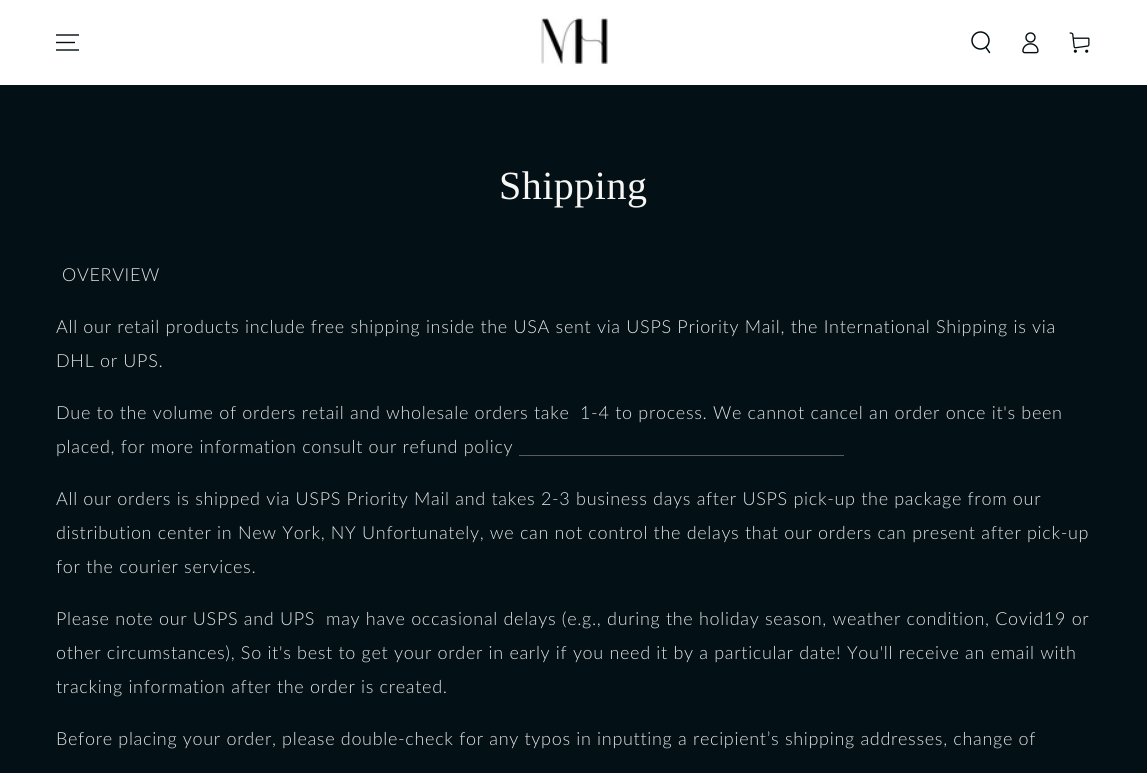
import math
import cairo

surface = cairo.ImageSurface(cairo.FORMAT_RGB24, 1147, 773)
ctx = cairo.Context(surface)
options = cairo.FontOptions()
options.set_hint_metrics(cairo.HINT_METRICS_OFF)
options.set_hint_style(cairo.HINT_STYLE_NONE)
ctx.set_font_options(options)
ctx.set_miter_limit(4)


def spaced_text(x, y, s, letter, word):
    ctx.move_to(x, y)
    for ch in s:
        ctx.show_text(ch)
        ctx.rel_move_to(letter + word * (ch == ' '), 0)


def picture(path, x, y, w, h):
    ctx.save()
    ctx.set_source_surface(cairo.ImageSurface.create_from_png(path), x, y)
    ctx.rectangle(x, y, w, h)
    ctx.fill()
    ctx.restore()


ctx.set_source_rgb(0.012, 0.067, 0.086)
ctx.paint()
ctx.set_source_rgb(1, 1, 1)
ctx.rectangle(0, 0, 1147, 85)
ctx.fill()
ctx.new_path()
ctx.move_to(56, 50)
ctx.line_to(79, 50)
ctx.move_to(56, 42.5)
ctx.line_to(75, 42.5)
ctx.move_to(56, 35)
ctx.line_to(79, 35)
ctx.set_source_rgb(0.008, 0.051, 0.071)
ctx.set_line_width(1.4)
ctx.stroke()
picture("img1.png", 541, 16, 67, 50)
ctx.arc(980.5, 40.5, 8.5, 0, 2 * math.pi)
ctx.set_line_width(1.5)
ctx.stroke()
ctx.new_path()
ctx.move_to(986, 47.5)
ctx.line_to(989.5, 52.5)
ctx.set_line_cap(cairo.LINE_CAP_ROUND)
ctx.stroke()
picture("img2.png", 1022, 32, 17, 22)
picture("img3.png", 1069, 32, 21, 21)
ctx.select_font_face("Liberation Serif")
ctx.set_font_size(40)
ctx.set_source_rgb(0.961, 0.961, 0.957)
spaced_text(499, 199, "Shipping", 0.5, 0)
ctx.select_font_face("Lato Light")
ctx.set_font_size(18)
ctx.set_source_rgb(0.886, 0.886, 0.886)
spaced_text(62, 281, "OVERVIEW", 0.68, 0)
spaced_text(56, 333, "All our retail products include free shipping inside the USA sent via USPS Priority Mail, the International Shipping is via", 0.68, 0)
spaced_text(56, 367, "DHL or UPS.", 0.68, 0)
spaced_text(56, 419, "Due to the volume of orders retail and wholesale orders take", 0.68, 0)
spaced_text(580, 419, "1-4 to process. We cannot cancel an order once it's been", 0.68, 0)
spaced_text(56, 453, "placed, for more information consult our refund policy", 0.68, 0)
ctx.set_source_rgb(0.357, 0.357, 0.357)
ctx.rectangle(519, 455, 325, 1)
ctx.fill()
ctx.set_source_rgb(0.886, 0.886, 0.886)
spaced_text(56, 505, "All our orders is shipped via USPS Priority Mail and takes 2-3 business days after USPS pick-up the package from our", 0.68, 0)
spaced_text(56, 539, "distribution center in New York, NY Unfortunately, we can not control the delays that our orders can present after pick-up", 0.68, 0)
spaced_text(56, 573, "for the courier services.", 0.68, 0)
spaced_text(56, 625, "Please note our USPS and UPS", 0.68, 0)
spaced_text(326, 625, "may have occasional delays (e.g., during the holiday season, weather condition, Covid19 or", 0.68, 0)
spaced_text(56, 659, "other circumstances), So it's best to get your order in early if you need it by a particular date! You'll receive an email with", 0.68, 0)
spaced_text(56, 693, "tracking information after the order is created.", 0.68, 0)
spaced_text(56, 745, "Before placing your order, please double-check for any typos in inputting a recipient’s shipping addresses, change of", 0.68, 0)
surface.write_to_png("page.png")
